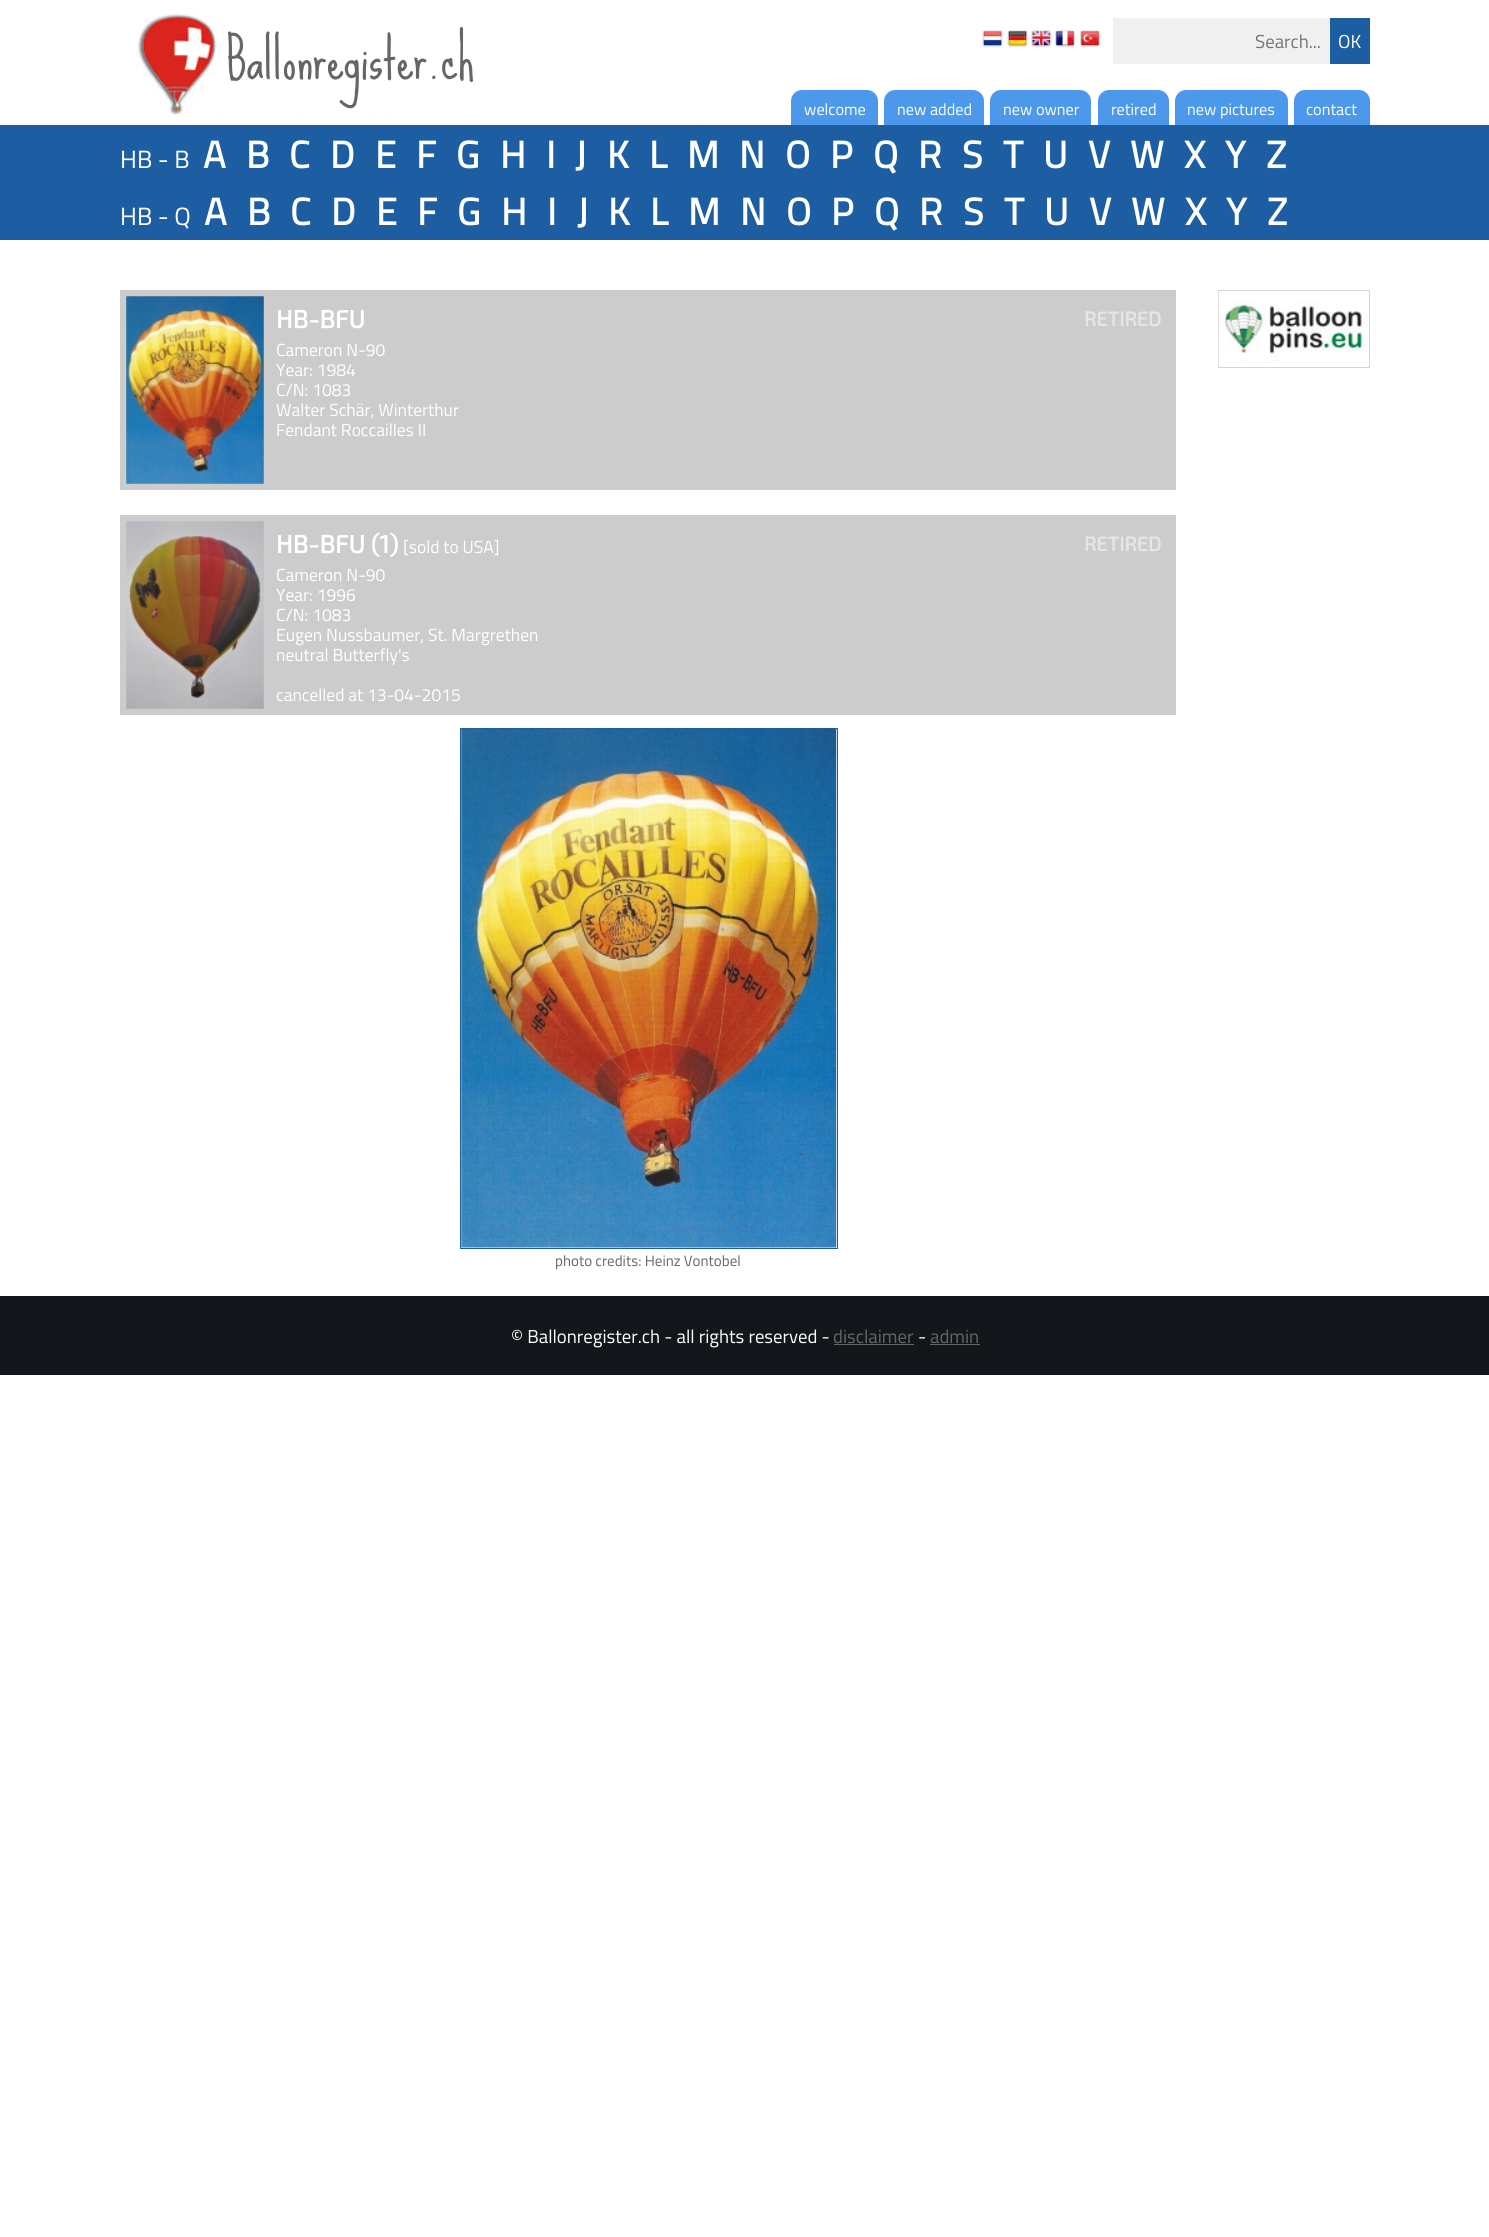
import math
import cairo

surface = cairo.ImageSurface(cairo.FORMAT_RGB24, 1489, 2237)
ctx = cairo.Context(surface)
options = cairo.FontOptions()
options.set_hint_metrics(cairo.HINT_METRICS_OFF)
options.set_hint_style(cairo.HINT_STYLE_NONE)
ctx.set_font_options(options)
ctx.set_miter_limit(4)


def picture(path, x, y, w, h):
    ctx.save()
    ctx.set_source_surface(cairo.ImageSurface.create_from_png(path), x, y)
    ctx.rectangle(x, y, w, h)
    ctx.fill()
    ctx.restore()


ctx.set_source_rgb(1, 1, 1)
ctx.paint()
picture("img1.png", 135, 13, 82, 102)
ctx.select_font_face("Sue Ellen Francisco")
ctx.set_font_size(55)
ctx.set_source_rgb(0.4, 0.4, 0.4)
ctx.move_to(226, 79)
ctx.show_text("Ballonregister.ch")
picture("img2.png", 982, 30, 21, 18)
picture("img3.png", 1007, 30, 21, 18)
picture("img4.png", 1031, 30, 21, 18)
picture("img5.png", 1055, 30, 20, 18)
picture("img6.png", 1080, 30, 20, 18)
ctx.set_source_rgb(0.941, 0.941, 0.941)
ctx.rectangle(1113, 18, 217, 46)
ctx.fill()
ctx.select_font_face("Titillium Web")
ctx.set_font_size(18.75)
ctx.set_source_rgb(0.459, 0.459, 0.459)
ctx.move_to(1255, 48)
ctx.show_text("Search...")
ctx.set_source_rgb(0.114, 0.369, 0.635)
ctx.rectangle(1330, 18, 40, 46)
ctx.fill()
ctx.set_source_rgb(1, 1, 1)
ctx.move_to(1338, 48)
ctx.show_text("OK")
ctx.set_source_rgb(0.298, 0.6, 0.922)
ctx.new_path()
ctx.move_to(802, 90)
ctx.line_to(867, 90)
ctx.curve_to(873, 90, 878, 95, 878, 101)
ctx.line_to(878, 125)
ctx.line_to(791, 125)
ctx.line_to(791, 101)
ctx.curve_to(791, 95, 796, 90, 802, 90)
ctx.close_path()
ctx.fill()
ctx.set_font_size(16.25)
ctx.set_source_rgb(1, 1, 1)
ctx.move_to(804, 115)
ctx.show_text("welcome")
ctx.set_source_rgb(0.298, 0.6, 0.922)
ctx.new_path()
ctx.move_to(895, 90)
ctx.line_to(973, 90)
ctx.curve_to(979, 90, 984, 95, 984, 101)
ctx.line_to(984, 125)
ctx.line_to(884, 125)
ctx.line_to(884, 101)
ctx.curve_to(884, 95, 889, 90, 895, 90)
ctx.close_path()
ctx.fill()
ctx.set_source_rgb(1, 1, 1)
ctx.move_to(897, 115)
ctx.show_text("new added")
ctx.set_source_rgb(0.298, 0.6, 0.922)
ctx.new_path()
ctx.move_to(1001, 90)
ctx.line_to(1080, 90)
ctx.curve_to(1086, 90, 1091, 95, 1091, 101)
ctx.line_to(1091, 125)
ctx.line_to(990, 125)
ctx.line_to(990, 101)
ctx.curve_to(990, 95, 995, 90, 1001, 90)
ctx.close_path()
ctx.fill()
ctx.set_source_rgb(1, 1, 1)
ctx.move_to(1003, 115)
ctx.show_text("new owner")
ctx.set_source_rgb(0.298, 0.6, 0.922)
ctx.new_path()
ctx.move_to(1109, 90)
ctx.line_to(1158, 90)
ctx.curve_to(1164, 90, 1169, 95, 1169, 101)
ctx.line_to(1169, 125)
ctx.line_to(1098, 125)
ctx.line_to(1098, 101)
ctx.curve_to(1098, 95, 1103, 90, 1109, 90)
ctx.close_path()
ctx.fill()
ctx.set_source_rgb(1, 1, 1)
ctx.move_to(1111, 115)
ctx.show_text("retired")
ctx.set_source_rgb(0.298, 0.6, 0.922)
ctx.new_path()
ctx.move_to(1186, 90)
ctx.line_to(1277, 90)
ctx.curve_to(1283, 90, 1288, 95, 1288, 101)
ctx.line_to(1288, 125)
ctx.line_to(1175, 125)
ctx.line_to(1175, 101)
ctx.curve_to(1175, 95, 1180, 90, 1186, 90)
ctx.close_path()
ctx.fill()
ctx.set_source_rgb(1, 1, 1)
ctx.move_to(1187, 115)
ctx.show_text("new pictures")
ctx.set_source_rgb(0.298, 0.6, 0.922)
ctx.new_path()
ctx.move_to(1305, 90)
ctx.line_to(1359, 90)
ctx.curve_to(1365, 90, 1370, 95, 1370, 101)
ctx.line_to(1370, 125)
ctx.line_to(1294, 125)
ctx.line_to(1294, 101)
ctx.curve_to(1294, 95, 1299, 90, 1305, 90)
ctx.close_path()
ctx.fill()
ctx.set_source_rgb(1, 1, 1)
ctx.move_to(1306, 115)
ctx.show_text("contact")
ctx.set_source_rgb(0.114, 0.369, 0.635)
ctx.rectangle(0, 125, 1489, 115)
ctx.fill()
ctx.set_font_size(25)
ctx.set_source_rgb(1, 1, 1)
ctx.move_to(120, 168)
ctx.show_text("HB - B")
ctx.select_font_face("Titillium Web", cairo.FONT_SLANT_NORMAL, cairo.FONT_WEIGHT_BOLD)
ctx.set_font_size(38)
ctx.move_to(203, 168)
ctx.show_text("A")
ctx.move_to(246, 168)
ctx.show_text("B")
ctx.move_to(289, 168)
ctx.show_text("C")
ctx.move_to(330, 168)
ctx.show_text("D")
ctx.move_to(375, 168)
ctx.show_text("E")
ctx.move_to(416, 168)
ctx.show_text("F")
ctx.move_to(456, 168)
ctx.show_text("G")
ctx.move_to(500, 168)
ctx.show_text("H")
ctx.move_to(546, 168)
ctx.show_text("I")
ctx.move_to(575, 168)
ctx.show_text("J")
ctx.move_to(607, 168)
ctx.show_text("K")
ctx.move_to(649, 168)
ctx.show_text("L")
ctx.move_to(687, 168)
ctx.show_text("M")
ctx.move_to(739, 168)
ctx.show_text("N")
ctx.move_to(785, 168)
ctx.show_text("O")
ctx.move_to(830, 168)
ctx.show_text("P")
ctx.move_to(873, 168)
ctx.show_text("Q")
ctx.move_to(918, 168)
ctx.show_text("R")
ctx.move_to(962, 168)
ctx.show_text("S")
ctx.move_to(1003, 168)
ctx.show_text("T")
ctx.move_to(1043, 168)
ctx.show_text("U")
ctx.move_to(1088, 168)
ctx.show_text("V")
ctx.move_to(1130, 168)
ctx.show_text("W")
ctx.move_to(1184, 168)
ctx.show_text("X")
ctx.move_to(1225, 168)
ctx.show_text("Y")
ctx.move_to(1266, 168)
ctx.show_text("Z")
ctx.select_font_face("Titillium Web")
ctx.set_font_size(25)
ctx.move_to(120, 225)
ctx.show_text("HB - Q")
ctx.select_font_face("Titillium Web", cairo.FONT_SLANT_NORMAL, cairo.FONT_WEIGHT_BOLD)
ctx.set_font_size(38)
ctx.move_to(204, 225)
ctx.show_text("A")
ctx.move_to(247, 225)
ctx.show_text("B")
ctx.move_to(290, 225)
ctx.show_text("C")
ctx.move_to(331, 225)
ctx.show_text("D")
ctx.move_to(376, 225)
ctx.show_text("E")
ctx.move_to(417, 225)
ctx.show_text("F")
ctx.move_to(457, 225)
ctx.show_text("G")
ctx.move_to(501, 225)
ctx.show_text("H")
ctx.move_to(547, 225)
ctx.show_text("I")
ctx.move_to(577, 225)
ctx.show_text("J")
ctx.move_to(608, 225)
ctx.show_text("K")
ctx.move_to(650, 225)
ctx.show_text("L")
ctx.move_to(688, 225)
ctx.show_text("M")
ctx.move_to(740, 225)
ctx.show_text("N")
ctx.move_to(786, 225)
ctx.show_text("O")
ctx.move_to(831, 225)
ctx.show_text("P")
ctx.move_to(874, 225)
ctx.show_text("Q")
ctx.move_to(919, 225)
ctx.show_text("R")
ctx.move_to(963, 225)
ctx.show_text("S")
ctx.move_to(1004, 225)
ctx.show_text("T")
ctx.move_to(1044, 225)
ctx.show_text("U")
ctx.move_to(1089, 225)
ctx.show_text("V")
ctx.move_to(1131, 225)
ctx.show_text("W")
ctx.move_to(1185, 225)
ctx.show_text("X")
ctx.move_to(1226, 225)
ctx.show_text("Y")
ctx.move_to(1267, 225)
ctx.show_text("Z")
ctx.set_source_rgb(0.8, 0.8, 0.8)
ctx.rectangle(120, 290, 1056, 200)
ctx.fill()
picture("img7.png", 126, 296, 138, 188)
ctx.select_font_face("Exo 2", cairo.FONT_SLANT_NORMAL, cairo.FONT_WEIGHT_BOLD)
ctx.set_font_size(25)
ctx.set_source_rgb(1, 1, 1)
ctx.move_to(276, 328)
ctx.show_text("HB-BFU")
ctx.set_font_size(20)
ctx.set_source_rgb(0.902, 0.902, 0.902)
ctx.move_to(1084, 326)
ctx.show_text("RETIRED")
ctx.select_font_face("Titillium Web")
ctx.set_font_size(17.5)
ctx.set_source_rgb(1, 1, 1)
ctx.move_to(276, 356)
ctx.show_text("Cameron N-90")
ctx.move_to(276, 376)
ctx.show_text("Year: 1984")
ctx.move_to(276, 396)
ctx.show_text("C/N: 1083")
ctx.move_to(276, 416)
ctx.show_text("Walter Schär, Winterthur")
ctx.move_to(276, 436)
ctx.show_text("Fendant Roccailles II")
ctx.rectangle(1218.5, 290.5, 151, 77)
ctx.set_source_rgb(0.835, 0.835, 0.835)
ctx.set_line_width(1)
ctx.stroke()
picture("img8.png", 1218, 291, 151, 75)
ctx.set_source_rgb(0.8, 0.8, 0.8)
ctx.rectangle(120, 515, 1056, 200)
ctx.fill()
picture("img9.png", 126, 521, 138, 188)
ctx.select_font_face("Exo 2", cairo.FONT_SLANT_NORMAL, cairo.FONT_WEIGHT_BOLD)
ctx.set_font_size(25)
ctx.set_source_rgb(1, 1, 1)
ctx.move_to(276, 553)
ctx.show_text("HB-BFU (1)")
ctx.select_font_face("Titillium Web")
ctx.set_font_size(17.5)
ctx.move_to(403, 553)
ctx.show_text("[sold to USA]")
ctx.select_font_face("Exo 2", cairo.FONT_SLANT_NORMAL, cairo.FONT_WEIGHT_BOLD)
ctx.set_font_size(20)
ctx.set_source_rgb(0.902, 0.902, 0.902)
ctx.move_to(1084, 551)
ctx.show_text("RETIRED")
ctx.select_font_face("Titillium Web")
ctx.set_font_size(17.5)
ctx.set_source_rgb(1, 1, 1)
ctx.move_to(276, 581)
ctx.show_text("Cameron N-90")
ctx.move_to(276, 601)
ctx.show_text("Year: 1996")
ctx.move_to(276, 621)
ctx.show_text("C/N: 1083")
ctx.move_to(276, 641)
ctx.show_text("Eugen Nussbaumer, St. Margrethen")
ctx.move_to(276, 661)
ctx.show_text("neutral Butterfly's")
ctx.move_to(276, 701)
ctx.show_text("cancelled at 13-04-2015")
ctx.rectangle(460.5, 728.5, 377, 520)
ctx.set_source_rgb(0.114, 0.369, 0.635)
ctx.stroke()
picture("img10.png", 461, 728, 376, 520)
ctx.set_font_size(15)
ctx.set_source_rgb(0.4, 0.4, 0.4)
ctx.move_to(555, 1266)
ctx.show_text("photo credits: Heinz Vontobel")
ctx.set_source_rgb(0.078, 0.09, 0.11)
ctx.rectangle(0, 1296, 1489, 79)
ctx.fill()
ctx.set_font_size(18.75)
ctx.set_source_rgb(1, 1, 1)
ctx.move_to(511, 1343)
ctx.show_text("© Ballonregister.ch - all rights reserved -")
ctx.set_source_rgb(0.4, 0.4, 0.4)
ctx.move_to(833, 1343)
ctx.show_text("disclaimer")
ctx.rectangle(834, 1344, 80, 1)
ctx.fill()
ctx.set_source_rgb(1, 1, 1)
ctx.move_to(918, 1343)
ctx.show_text("-")
ctx.set_source_rgb(0.4, 0.4, 0.4)
ctx.move_to(930, 1343)
ctx.show_text("admin")
ctx.rectangle(930, 1344, 50, 1)
ctx.fill()
surface.write_to_png("page.png")
